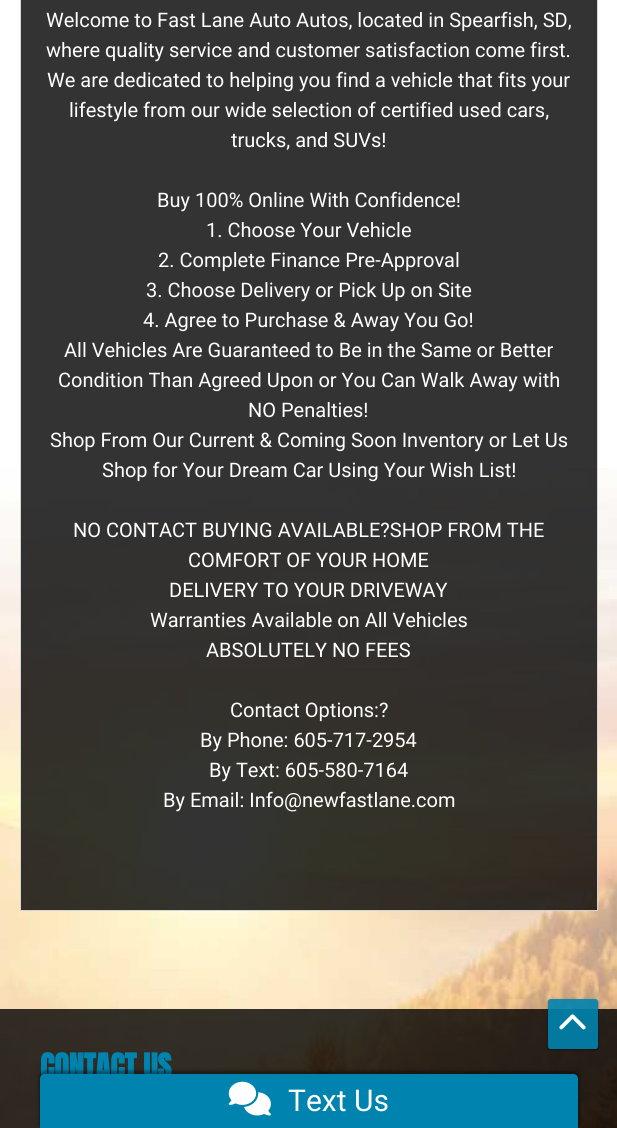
import math
import cairo

surface = cairo.ImageSurface(cairo.FORMAT_RGB24, 617, 1128)
ctx = cairo.Context(surface)
options = cairo.FontOptions()
options.set_hint_metrics(cairo.HINT_METRICS_OFF)
options.set_hint_style(cairo.HINT_STYLE_NONE)
ctx.set_font_options(options)
ctx.set_miter_limit(4)


def round_rect(x, y, w, h, r):
    ctx.new_sub_path()
    for i, (u, v) in enumerate([(x + w - r, y + h - r), (x + r, y + h - r), (x + r, y + r), (x + w - r, y + r)]):
        ctx.arc(u, v, r, i * math.pi / 2, (i + 1) * math.pi / 2)
    ctx.close_path()


def shadow(x, y, w, h, r, blur, alpha):
    ctx.push_group_with_content(cairo.CONTENT_ALPHA)
    ctx.set_operator(cairo.OPERATOR_SOURCE)
    for i in range(15, -16, -2):
        e = blur * i / 6
        if min(w, h) + 2 * e > 0:
            ctx.set_source_rgba(0, 0, 0, alpha * math.erfc((i - 1) / 8.5) / 2)
            round_rect(x - e, y - e, w + 2 * e, h + 2 * e, max(0, min(r + e + blur * .6, min(w, h) / 2 + e)))
            ctx.fill()
    ctx.mask(ctx.pop_group())


def picture(path, x, y, w, h):
    ctx.save()
    ctx.set_source_surface(cairo.ImageSurface.create_from_png(path), x, y)
    ctx.rectangle(x, y, w, h)
    ctx.fill()
    ctx.restore()


ctx.set_source_rgb(1, 1, 1)
ctx.paint()
picture("img1.png", 0, 468, 617, 660)
ctx.set_source_rgba(0, 0, 0, 0.8)
ctx.rectangle(20, 0, 578, 911)
ctx.fill()
ctx.rectangle(20.5, -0.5, 577, 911)
ctx.set_source_rgba(1, 1, 1, 0.8)
ctx.set_line_width(1)
ctx.stroke()
ctx.select_font_face("Roboto")
ctx.set_font_size(20)
ctx.set_source_rgb(1, 1, 1)
ctx.move_to(46, 27)
ctx.show_text("Welcome to Fast Lane Auto Autos, located in Spearfish, SD,")
ctx.move_to(46, 57)
ctx.show_text("where quality service and customer satisfaction come first.")
ctx.move_to(47, 87)
ctx.show_text("We are dedicated to helping you find a vehicle that fits your")
ctx.move_to(69, 117)
ctx.show_text("lifestyle from our wide selection of certified used cars,")
ctx.move_to(231, 147)
ctx.show_text("trucks, and SUVs!")
ctx.move_to(157, 207)
ctx.show_text("Buy 100% Online With Confidence!")
ctx.move_to(206, 237)
ctx.show_text("1. Choose Your Vehicle")
ctx.move_to(158, 267)
ctx.show_text("2. Complete Finance Pre-Approval")
ctx.move_to(146, 297)
ctx.show_text("3. Choose Delivery or Pick Up on Site")
ctx.move_to(143, 327)
ctx.show_text("4. Agree to Purchase & Away You Go!")
ctx.move_to(64, 357)
ctx.show_text("All Vehicles Are Guaranteed to Be in the Same or Better")
ctx.move_to(58, 387)
ctx.show_text("Condition Than Agreed Upon or You Can Walk Away with")
ctx.move_to(248, 417)
ctx.show_text("NO Penalties!")
ctx.move_to(50, 447)
ctx.show_text("Shop From Our Current & Coming Soon Inventory or Let Us")
ctx.move_to(102, 477)
ctx.show_text("Shop for Your Dream Car Using Your Wish List!")
ctx.move_to(73, 537)
ctx.show_text("NO CONTACT BUYING AVAILABLE?SHOP FROM THE")
ctx.move_to(188, 567)
ctx.show_text("COMFORT OF YOUR HOME")
ctx.move_to(169, 597)
ctx.show_text("DELIVERY TO YOUR DRIVEWAY")
ctx.move_to(150, 627)
ctx.show_text("Warranties Available on All Vehicles")
ctx.move_to(206, 657)
ctx.show_text("ABSOLUTELY NO FEES")
ctx.move_to(230, 717)
ctx.show_text("Contact Options:?")
ctx.move_to(200, 747)
ctx.show_text("By Phone: 605-717-2954")
ctx.move_to(209, 777)
ctx.show_text("By Text: 605-580-7164")
ctx.move_to(163, 807)
ctx.show_text("By Email: Info@newfastlane.com")
ctx.set_source_rgba(0, 0, 0, 0.8)
ctx.rectangle(0, 1009, 617, 119)
ctx.fill()
ctx.save()
ctx.set_fill_rule(cairo.FILL_RULE_EVEN_ODD)
ctx.new_path()
ctx.move_to(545, 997)
ctx.line_to(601, 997)
ctx.line_to(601, 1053)
ctx.line_to(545, 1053)
ctx.close_path()
ctx.move_to(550.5, 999)
ctx.line_to(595.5, 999)
ctx.curve_to(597, 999, 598, 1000, 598, 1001.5)
ctx.line_to(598, 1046.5)
ctx.curve_to(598, 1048, 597, 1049, 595.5, 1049)
ctx.line_to(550.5, 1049)
ctx.curve_to(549, 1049, 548, 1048, 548, 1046.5)
ctx.line_to(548, 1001.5)
ctx.curve_to(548, 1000, 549, 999, 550.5, 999)
ctx.close_path()
ctx.clip()
ctx.set_source_rgb(0, 0, 0)
shadow(548, 1000, 50, 50, 2.5, 0.5, 0.2)
ctx.restore()
ctx.save()
ctx.set_fill_rule(cairo.FILL_RULE_EVEN_ODD)
ctx.new_path()
ctx.move_to(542, 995)
ctx.line_to(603, 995)
ctx.line_to(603, 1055)
ctx.line_to(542, 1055)
ctx.close_path()
ctx.move_to(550.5, 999)
ctx.line_to(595.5, 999)
ctx.curve_to(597, 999, 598, 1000, 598, 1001.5)
ctx.line_to(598, 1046.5)
ctx.curve_to(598, 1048, 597, 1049, 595.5, 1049)
ctx.line_to(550.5, 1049)
ctx.curve_to(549, 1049, 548, 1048, 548, 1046.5)
ctx.line_to(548, 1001.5)
ctx.curve_to(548, 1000, 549, 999, 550.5, 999)
ctx.close_path()
ctx.clip()
ctx.set_source_rgb(0, 0, 0)
shadow(546, 999, 53, 52, 4, 1, 0.1)
ctx.restore()
ctx.set_source_rgba(0, 0.514, 0.682, 0.9)
round_rect(548, 999, 50, 50, 2.5)
ctx.fill()
ctx.save()
ctx.set_fill_rule(cairo.FILL_RULE_EVEN_ODD)
ctx.new_path()
ctx.move_to(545, 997)
ctx.line_to(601, 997)
ctx.line_to(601, 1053)
ctx.line_to(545, 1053)
ctx.close_path()
ctx.move_to(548, 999)
ctx.line_to(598, 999)
ctx.line_to(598, 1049)
ctx.line_to(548, 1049)
ctx.close_path()
ctx.clip()
ctx.set_source_rgb(0, 0, 0)
shadow(548, 1000, 50, 50, 0, 0.5, 0.2)
ctx.restore()
picture("img2.png", 559, 1014, 27, 16)
ctx.select_font_face("Anton", cairo.FONT_SLANT_NORMAL, cairo.FONT_WEIGHT_BOLD)
ctx.set_font_size(30)
ctx.set_source_rgb(0, 0.514, 0.682)
ctx.move_to(40, 1079)
ctx.show_text("CONTACT US")
ctx.set_source_rgb(0, 0, 0)
shadow(39, 1071, 540, 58, 6, 1, 0.25)
shadow(38, 1070, 542, 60, 8, 2, 0.15)
ctx.set_source_rgb(0, 0.514, 0.682)
ctx.new_path()
ctx.move_to(45, 1074)
ctx.line_to(573, 1074)
ctx.curve_to(576, 1074, 578, 1076, 578, 1079)
ctx.line_to(578, 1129)
ctx.line_to(40, 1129)
ctx.line_to(40, 1079)
ctx.curve_to(40, 1076, 42, 1074, 45, 1074)
ctx.close_path()
ctx.fill()
picture("img3.png", 228, 1081, 43, 35)
ctx.select_font_face("Roboto")
ctx.set_source_rgb(1, 1, 1)
ctx.move_to(288, 1111)
ctx.show_text("Text Us")
surface.write_to_png("page.png")
